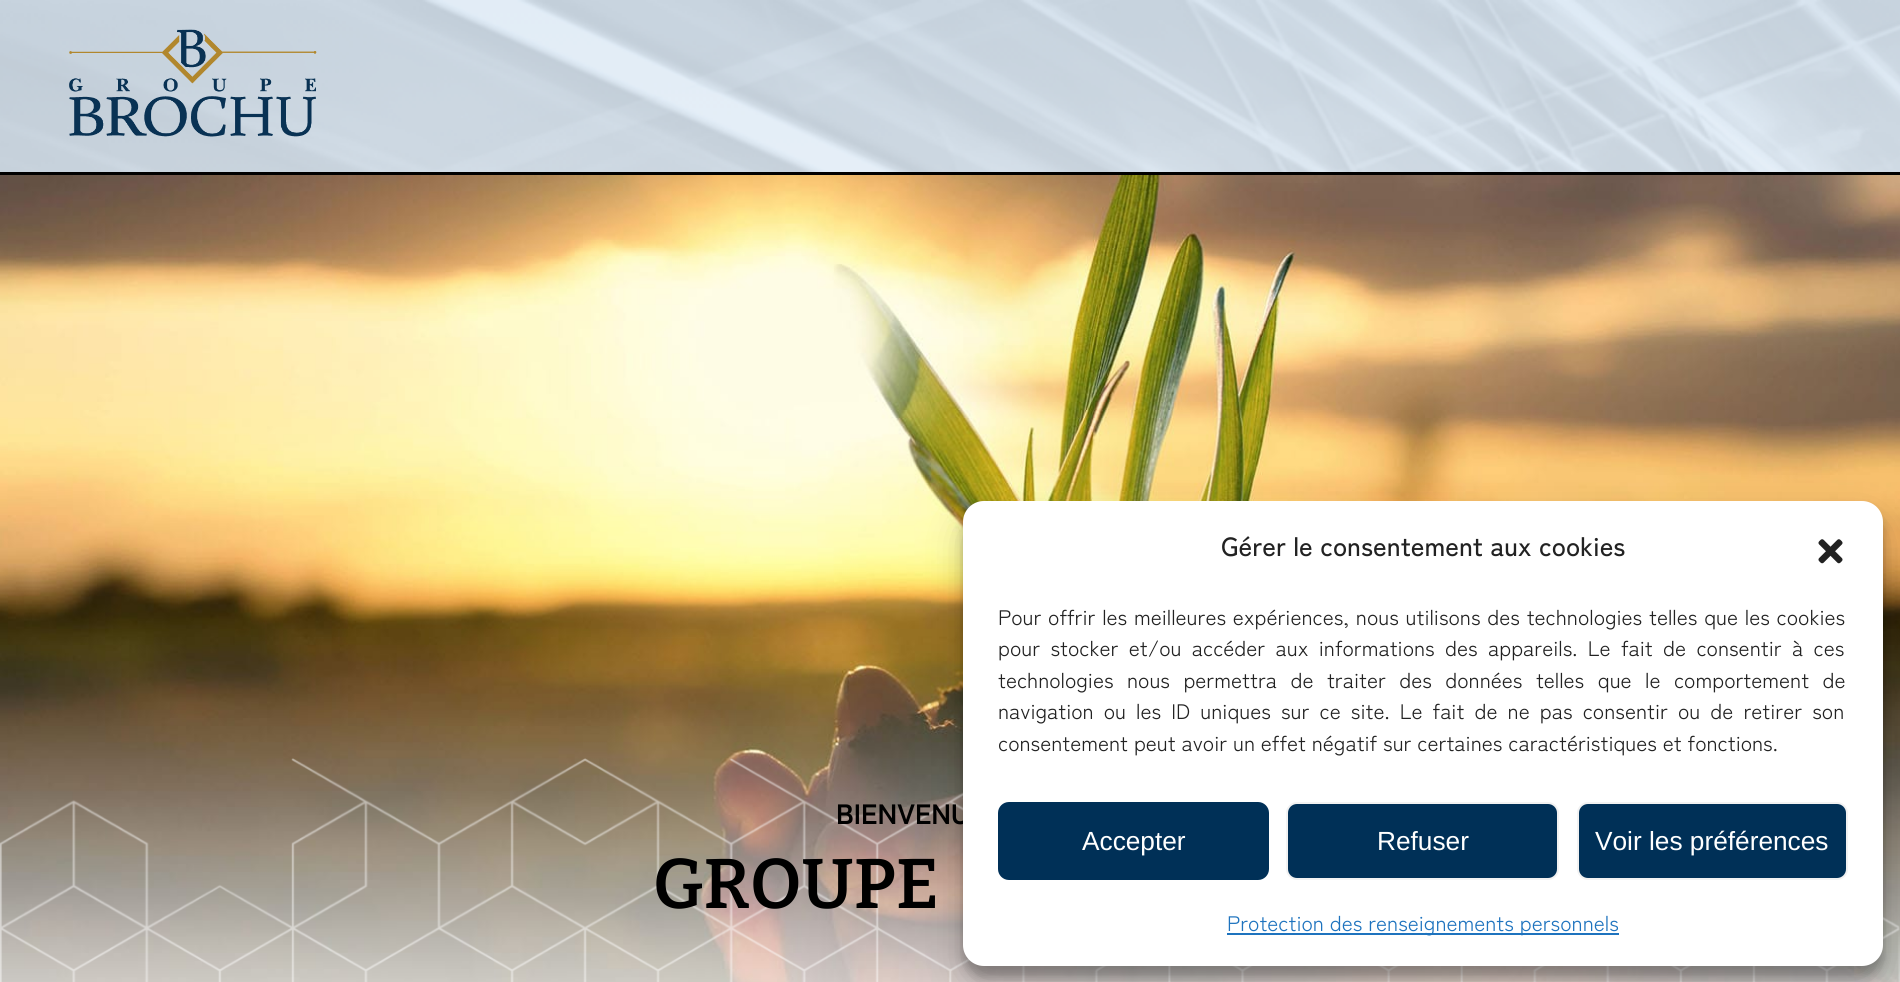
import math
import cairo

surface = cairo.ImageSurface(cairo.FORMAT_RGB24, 1900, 982)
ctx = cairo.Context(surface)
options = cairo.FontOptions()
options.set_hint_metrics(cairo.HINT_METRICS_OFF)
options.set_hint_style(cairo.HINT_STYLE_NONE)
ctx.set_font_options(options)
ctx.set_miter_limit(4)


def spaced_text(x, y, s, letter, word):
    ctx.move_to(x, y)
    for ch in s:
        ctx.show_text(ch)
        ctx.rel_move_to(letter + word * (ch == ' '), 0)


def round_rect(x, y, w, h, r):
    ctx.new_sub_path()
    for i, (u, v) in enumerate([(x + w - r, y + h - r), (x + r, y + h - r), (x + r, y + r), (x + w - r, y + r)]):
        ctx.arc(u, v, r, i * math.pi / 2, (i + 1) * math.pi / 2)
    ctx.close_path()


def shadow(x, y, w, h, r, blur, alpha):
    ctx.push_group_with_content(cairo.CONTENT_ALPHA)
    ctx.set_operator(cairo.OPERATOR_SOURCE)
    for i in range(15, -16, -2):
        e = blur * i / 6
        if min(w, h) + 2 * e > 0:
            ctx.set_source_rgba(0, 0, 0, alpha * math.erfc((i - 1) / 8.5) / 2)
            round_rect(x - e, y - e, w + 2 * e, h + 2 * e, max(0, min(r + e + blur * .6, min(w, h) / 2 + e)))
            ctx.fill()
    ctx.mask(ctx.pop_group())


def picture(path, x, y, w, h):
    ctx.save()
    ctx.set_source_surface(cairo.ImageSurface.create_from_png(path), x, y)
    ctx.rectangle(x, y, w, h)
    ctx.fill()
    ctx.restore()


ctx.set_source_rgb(1, 1, 1)
ctx.paint()
picture("img1.png", 0, 0, 1900, 172)
picture("img2.png", 69, 29, 248, 108)
ctx.set_source_rgb(0, 0, 0)
ctx.rectangle(0, 172, 1900, 3)
ctx.fill()
picture("img3.png", 0, 175, 1900, 807)
picture("img4.png", 0, 758, 1900, 224)
ctx.select_font_face("Zen Kaku Gothic Antique", cairo.FONT_SLANT_NORMAL, cairo.FONT_WEIGHT_BOLD)
ctx.set_font_size(28)
ctx.move_to(836, 824)
ctx.show_text("BIENVENU")
ctx.select_font_face("Bitter SemiBold")
ctx.set_font_size(70)
ctx.move_to(653, 908)
ctx.show_text("GROUPE")
ctx.set_source_rgb(0, 0, 0)
shadow(963, 511, 920, 466, 21, 5, 0.23)
shadow(963, 518, 920, 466, 21, 17.5, 0.19)
ctx.set_source_rgb(1, 1, 1)
round_rect(963, 501, 920, 465, 21)
ctx.fill()
ctx.select_font_face("Zen Kaku Gothic Antique Medium")
ctx.set_font_size(26.25)
ctx.set_source_rgb(0.133, 0.133, 0.133)
ctx.move_to(1221, 556)
ctx.show_text("Gérer le consentement aux cookies")
picture("img5.png", 1818, 539, 25, 25)
ctx.select_font_face("Zen Kaku Gothic Antique")
ctx.set_font_size(21)
spaced_text(998, 625, "Pour offrir les meilleures expériences, nous utilisons des technologies telles que les cookies", 0, 0.9)
spaced_text(998, 656, "pour stocker et/ou accéder aux informations des appareils. Le fait de consentir à ces", 0, 4.5)
spaced_text(998, 688, "technologies nous permettra de traiter des données telles que le comportement de", 0, 7.6)
spaced_text(998, 719, "navigation ou les ID uniques sur ce site. Le fait de ne pas consentir ou de retirer son", 0, 4.25)
ctx.move_to(998, 751)
ctx.show_text("consentement peut avoir un effet négatif sur certaines caractéristiques et fonctions.")
ctx.set_source_rgb(0, 0.188, 0.341)
round_rect(999, 803, 269, 76, 10)
ctx.fill_preserve()
ctx.stroke()
ctx.select_font_face("Liberation Sans")
ctx.set_font_size(26.25)
ctx.set_source_rgb(1, 1, 1)
ctx.move_to(1082, 850)
ctx.show_text("Accepter")
ctx.set_source_rgb(0, 0.188, 0.341)
round_rect(1287, 803, 271, 76, 10)
ctx.fill_preserve()
ctx.set_source_rgb(0.949, 0.949, 0.949)
ctx.stroke()
ctx.set_source_rgb(1, 1, 1)
ctx.move_to(1377, 850)
ctx.show_text("Refuser")
ctx.set_source_rgb(0, 0.188, 0.341)
round_rect(1578, 803, 269, 76, 10)
ctx.fill_preserve()
ctx.set_source_rgb(0.949, 0.949, 0.949)
ctx.stroke()
ctx.set_source_rgb(1, 1, 1)
ctx.move_to(1595, 850)
ctx.show_text("Voir les préférences")
ctx.set_source_rgb(0.118, 0.451, 0.745)
ctx.rectangle(1227, 933, 392, 2)
ctx.fill()
ctx.select_font_face("Zen Kaku Gothic Antique")
ctx.set_font_size(21)
ctx.move_to(1227, 931)
ctx.show_text("Protection des renseignements personnels")
surface.write_to_png("page.png")
